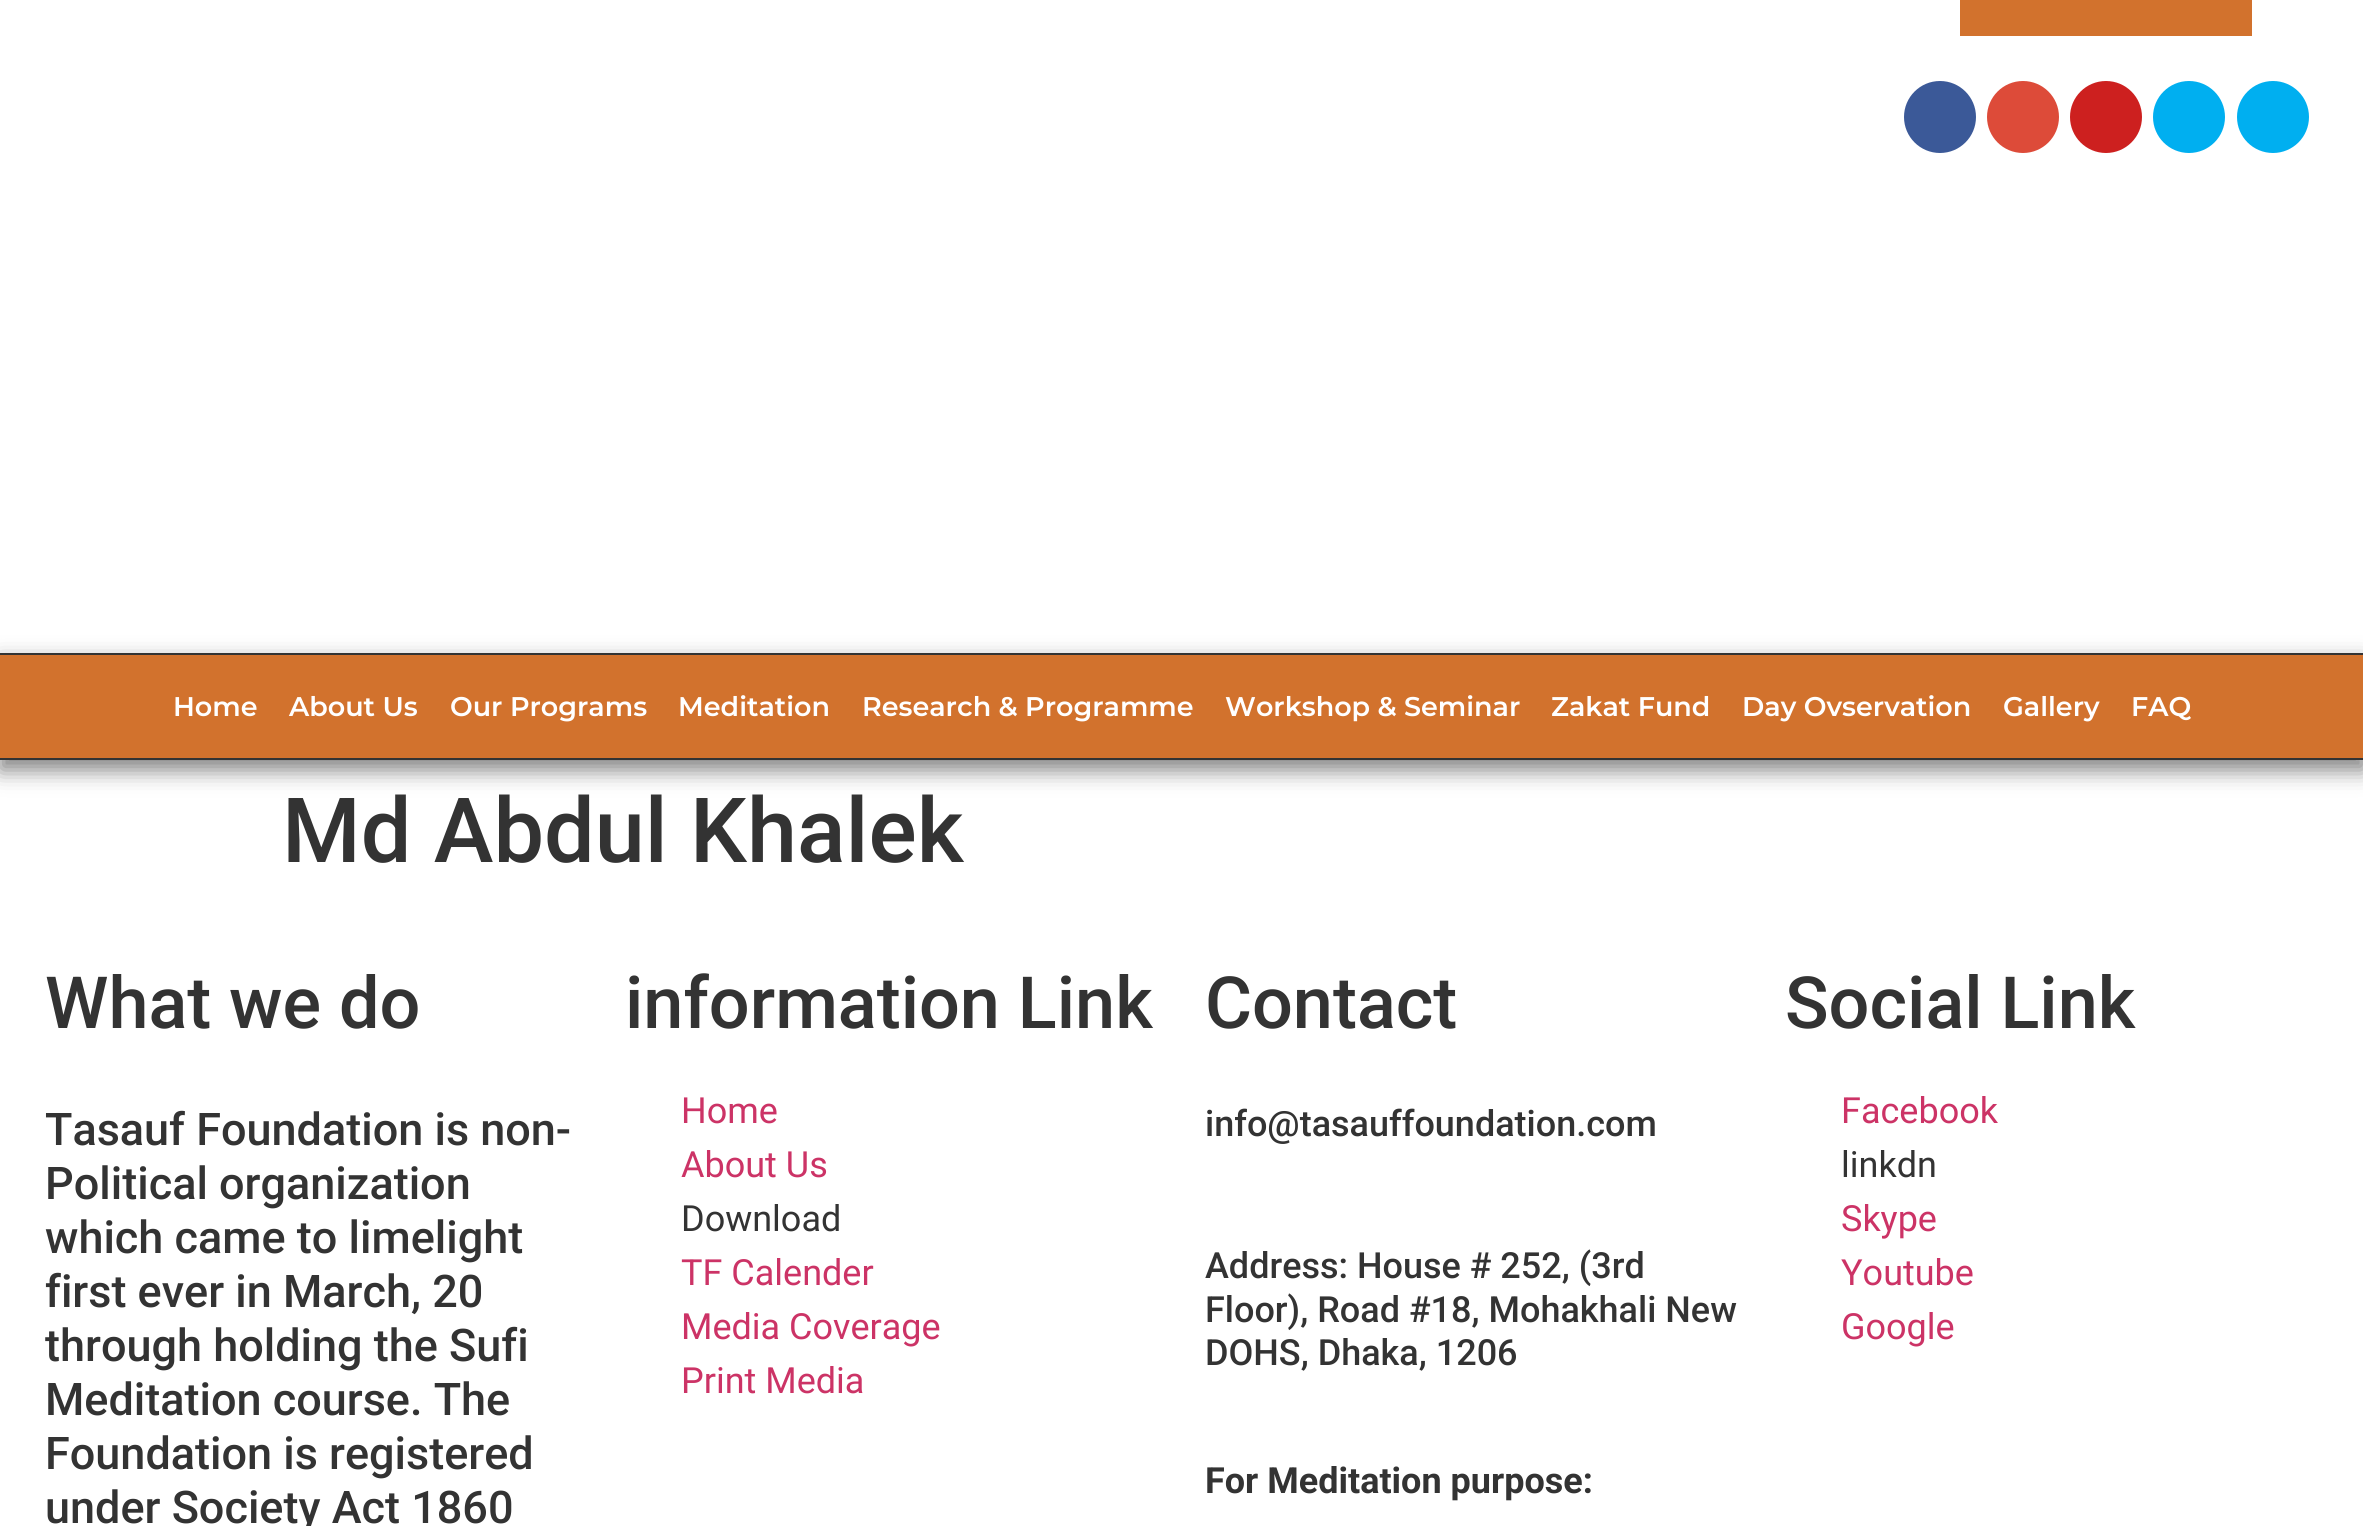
import math
import cairo

surface = cairo.ImageSurface(cairo.FORMAT_RGB24, 2363, 1526)
ctx = cairo.Context(surface)
options = cairo.FontOptions()
options.set_hint_metrics(cairo.HINT_METRICS_OFF)
options.set_hint_style(cairo.HINT_STYLE_NONE)
ctx.set_font_options(options)
ctx.set_miter_limit(4)


def round_rect(x, y, w, h, r):
    ctx.new_sub_path()
    for i, (u, v) in enumerate([(x + w - r, y + h - r), (x + r, y + h - r), (x + r, y + r), (x + w - r, y + r)]):
        ctx.arc(u, v, r, i * math.pi / 2, (i + 1) * math.pi / 2)
    ctx.close_path()


def shadow(x, y, w, h, r, blur, alpha):
    ctx.push_group_with_content(cairo.CONTENT_ALPHA)
    ctx.set_operator(cairo.OPERATOR_SOURCE)
    for i in range(15, -16, -2):
        e = blur * i / 6
        if min(w, h) + 2 * e > 0:
            ctx.set_source_rgba(0, 0, 0, alpha * math.erfc((i - 1) / 8.5) / 2)
            round_rect(x - e, y - e, w + 2 * e, h + 2 * e, max(0, min(r + e + blur * .6, min(w, h) / 2 + e)))
            ctx.fill()
    ctx.mask(ctx.pop_group())


ctx.set_source_rgb(1, 1, 1)
ctx.paint()
ctx.set_source_rgb(0.824, 0.447, 0.176)
ctx.rectangle(1960, 0, 292, 36)
ctx.fill()
ctx.set_source_rgb(0.231, 0.349, 0.596)
ctx.arc(1940, 117, 36, 0, 2 * math.pi)
ctx.fill()
ctx.set_source_rgb(0.867, 0.294, 0.224)
ctx.arc(2023, 117, 36, 0, 2 * math.pi)
ctx.fill()
ctx.set_source_rgb(0.804, 0.125, 0.122)
ctx.arc(2106, 117, 36, 0, 2 * math.pi)
ctx.fill()
ctx.set_source_rgb(0, 0.686, 0.941)
ctx.arc(2189, 117, 36, 0, 2 * math.pi)
ctx.fill()
ctx.arc(2273, 117, 36, 0, 2 * math.pi)
ctx.fill()
ctx.set_source_rgb(0, 0, 0)
shadow(0, 662, 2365, 108, 0, 11, 0.5)
ctx.set_source_rgb(0.824, 0.447, 0.176)
ctx.rectangle(0, 655, 2363, 103)
ctx.fill()
ctx.set_source_rgb(0.2, 0.2, 0.2)
ctx.rectangle(0, 653, 2363, 2)
ctx.fill()
ctx.rectangle(0, 758, 2363, 2)
ctx.fill()
ctx.select_font_face("Montserrat SemiBold")
ctx.set_font_size(27)
ctx.set_source_rgb(1, 1, 1)
ctx.move_to(173, 716)
ctx.show_text("Home")
ctx.move_to(289, 716)
ctx.show_text("About Us")
ctx.move_to(450, 716)
ctx.show_text("Our Programs")
ctx.move_to(678, 716)
ctx.show_text("Meditation")
ctx.move_to(862, 716)
ctx.show_text("Research & Programme")
ctx.move_to(1225, 716)
ctx.show_text("Workshop & Seminar")
ctx.move_to(1551, 716)
ctx.show_text("Zakat Fund")
ctx.move_to(1742, 716)
ctx.show_text("Day Ovservation")
ctx.move_to(2003, 716)
ctx.show_text("Gallery")
ctx.move_to(2131, 716)
ctx.show_text("FAQ")
ctx.select_font_face("Roboto Medium")
ctx.set_font_size(90)
ctx.set_source_rgb(0.2, 0.2, 0.2)
ctx.move_to(282, 862)
ctx.show_text("Md Abdul Khalek")
ctx.set_font_size(72)
ctx.move_to(45, 1028)
ctx.show_text("What we do")
ctx.set_font_size(45)
ctx.move_to(45, 1145)
ctx.show_text("Tasauf Foundation is non-")
ctx.move_to(45, 1199)
ctx.show_text("Political organization")
ctx.move_to(45, 1253)
ctx.show_text("which came to limelight")
ctx.move_to(45, 1307)
ctx.show_text("first ever in March, 20")
ctx.move_to(45, 1361)
ctx.show_text("through holding the Sufi")
ctx.move_to(45, 1415)
ctx.show_text("Meditation course. The")
ctx.move_to(45, 1469)
ctx.show_text("Foundation is registered")
ctx.move_to(45, 1523)
ctx.show_text("under Society Act 1860")
ctx.set_font_size(72)
ctx.move_to(625, 1028)
ctx.show_text("information Link")
ctx.select_font_face("Roboto")
ctx.set_font_size(36)
ctx.set_source_rgb(0.8, 0.2, 0.4)
ctx.move_to(681, 1123)
ctx.show_text("Home")
ctx.move_to(681, 1177)
ctx.show_text("About Us")
ctx.set_source_rgb(0.2, 0.2, 0.2)
ctx.move_to(681, 1231)
ctx.show_text("Download")
ctx.set_source_rgb(0.8, 0.2, 0.4)
ctx.move_to(681, 1285)
ctx.show_text("TF Calender")
ctx.move_to(681, 1339)
ctx.show_text("Media Coverage")
ctx.move_to(681, 1393)
ctx.show_text("Print Media")
ctx.select_font_face("Roboto Medium")
ctx.set_font_size(72)
ctx.set_source_rgb(0.2, 0.2, 0.2)
ctx.move_to(1205, 1028)
ctx.show_text("Contact")
ctx.set_font_size(36)
ctx.move_to(1205, 1136)
ctx.show_text("info@tasauffoundation.com")
ctx.move_to(1205, 1278)
ctx.show_text("Address: House # 252, (3rd")
ctx.move_to(1205, 1322)
ctx.show_text("Floor), Road #18, Mohakhali New")
ctx.move_to(1205, 1365)
ctx.show_text("DOHS, Dhaka, 1206")
ctx.select_font_face("Roboto", cairo.FONT_SLANT_NORMAL, cairo.FONT_WEIGHT_BOLD)
ctx.move_to(1205, 1493)
ctx.show_text("For Meditation purpose:")
ctx.select_font_face("Roboto Medium")
ctx.set_font_size(72)
ctx.move_to(1785, 1028)
ctx.show_text("Social Link")
ctx.select_font_face("Roboto")
ctx.set_font_size(36)
ctx.set_source_rgb(0.8, 0.2, 0.4)
ctx.move_to(1841, 1123)
ctx.show_text("Facebook")
ctx.set_source_rgb(0.2, 0.2, 0.2)
ctx.move_to(1841, 1177)
ctx.show_text("linkdn")
ctx.set_source_rgb(0.8, 0.2, 0.4)
ctx.move_to(1841, 1231)
ctx.show_text("Skype")
ctx.move_to(1841, 1285)
ctx.show_text("Youtube")
ctx.move_to(1841, 1339)
ctx.show_text("Google")
surface.write_to_png("page.png")
